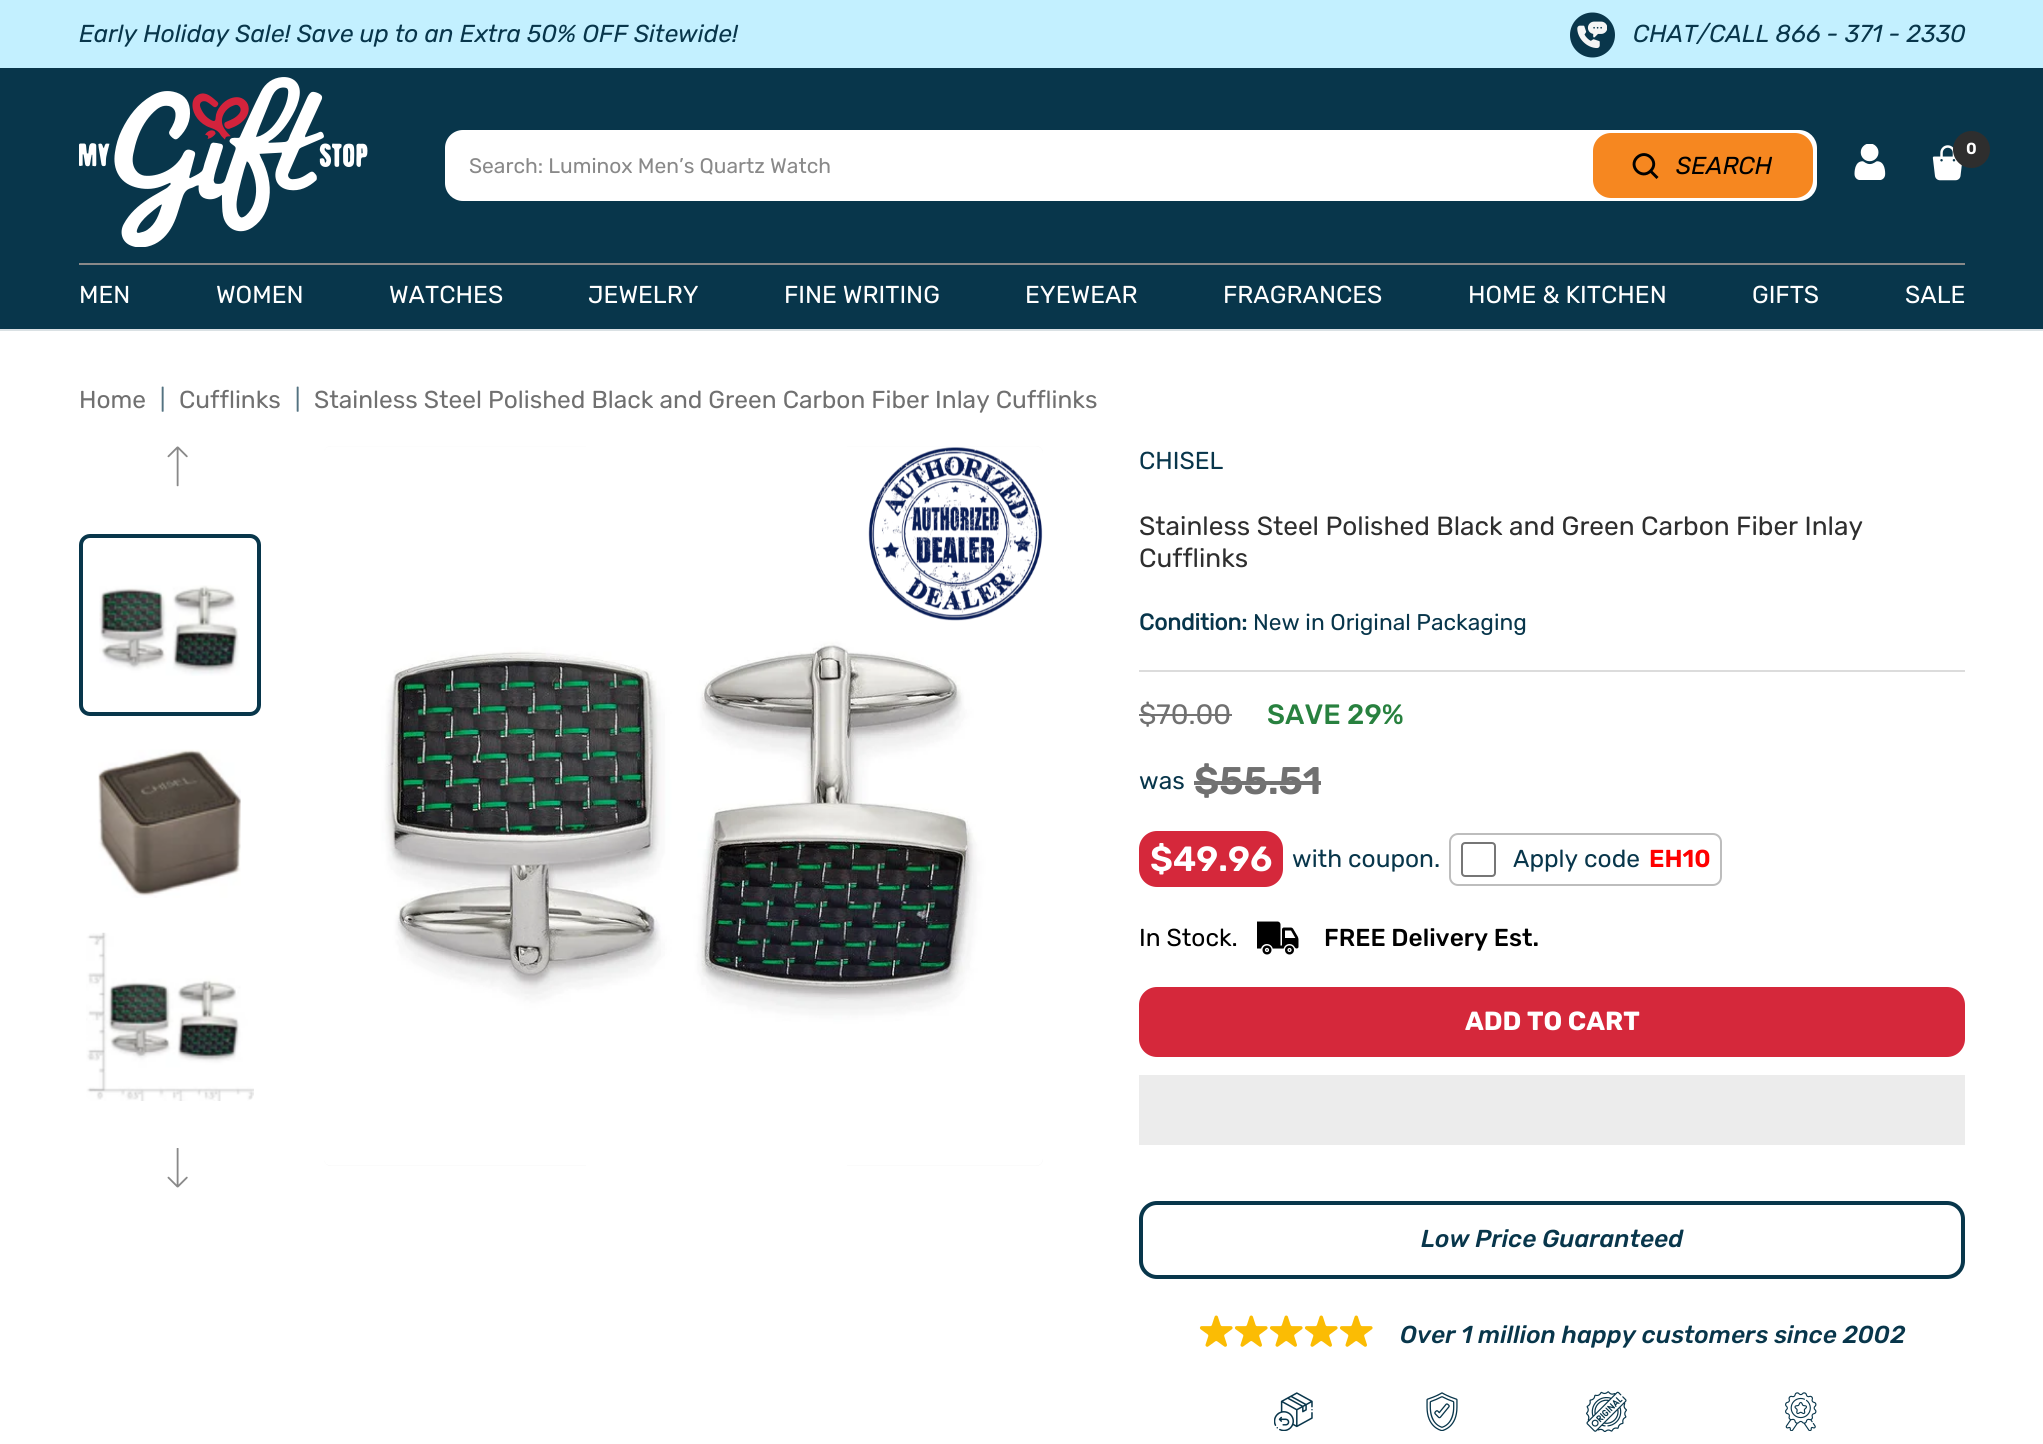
import math
import cairo

surface = cairo.ImageSurface(cairo.FORMAT_RGB24, 2043, 1444)
ctx = cairo.Context(surface)
options = cairo.FontOptions()
options.set_hint_metrics(cairo.HINT_METRICS_OFF)
options.set_hint_style(cairo.HINT_STYLE_NONE)
ctx.set_font_options(options)
ctx.set_miter_limit(4)


def round_rect(x, y, w, h, r):
    ctx.new_sub_path()
    for i, (u, v) in enumerate([(x + w - r, y + h - r), (x + r, y + h - r), (x + r, y + r), (x + w - r, y + r)]):
        ctx.arc(u, v, r, i * math.pi / 2, (i + 1) * math.pi / 2)
    ctx.close_path()


def picture(path, x, y, w, h):
    ctx.save()
    ctx.set_source_surface(cairo.ImageSurface.create_from_png(path), x, y)
    ctx.rectangle(x, y, w, h)
    ctx.fill()
    ctx.restore()


ctx.set_source_rgb(1, 1, 1)
ctx.paint()
ctx.set_source_rgb(0.855, 0.882, 0.894)
ctx.rectangle(0, 329, 2043, 2)
ctx.fill()
ctx.set_source_rgb(0.035, 0.212, 0.294)
ctx.rectangle(0, 68, 2043, 261)
ctx.fill()
ctx.set_source_rgb(0.765, 0.941, 1)
ctx.rectangle(0, 0, 2043, 68)
ctx.fill()
ctx.select_font_face("Rubik", cairo.FONT_SLANT_ITALIC)
ctx.set_font_size(24.5)
ctx.set_source_rgb(0.035, 0.212, 0.294)
ctx.move_to(79, 42)
ctx.show_text("Early Holiday Sale! Save up to an Extra 50% OFF Sitewide!")
picture("img1.png", 1570, 12, 45, 46)
ctx.move_to(1633, 42)
ctx.show_text("CHAT/CALL 866 - 371 - 2330")
picture("img2.png", 79, 77, 289, 170)
picture("img3.png", 1854, 144, 32, 36)
picture("img4.png", 1932, 145, 30, 36)
ctx.set_source_rgb(0.18, 0.18, 0.18)
ctx.arc(1971.5, 149.5, 18.5, 0, 2 * math.pi)
ctx.fill()
ctx.select_font_face("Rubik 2 SemiBold")
ctx.set_font_size(16)
ctx.set_source_rgb(1, 1, 1)
ctx.move_to(1966, 154)
ctx.show_text("0")
round_rect(447, 132, 1368, 67, 16)
ctx.fill_preserve()
ctx.set_line_width(4)
ctx.stroke()
ctx.select_font_face("Rubik 2")
ctx.set_font_size(21)
ctx.set_source_rgb(0.537, 0.537, 0.537)
ctx.move_to(469, 173)
ctx.show_text("Search: Luminox Men’s Quartz Watch")
ctx.set_source_rgb(0.961, 0.529, 0.125)
round_rect(1593, 133, 220, 65, 18)
ctx.fill()
ctx.new_path()
ctx.move_to(1650.5, 171)
ctx.curve_to(1660, 162, 1646.5, 148.5, 1637, 157.5)
ctx.curve_to(1628, 166.5, 1641.5, 180, 1650.5, 171)
ctx.close_path()
ctx.move_to(1650.5, 171)
ctx.line_to(1657.5, 178)
ctx.set_source_rgb(0, 0, 0)
ctx.set_line_width(2.9)
ctx.stroke()
ctx.select_font_face("Rubik", cairo.FONT_SLANT_ITALIC)
ctx.set_font_size(24.5)
ctx.move_to(1676, 174)
ctx.show_text("SEARCH")
ctx.set_source_rgb(0.537, 0.537, 0.537)
ctx.rectangle(79, 263, 1886, 2)
ctx.fill()
ctx.select_font_face("Rubik 2")
ctx.set_source_rgb(1, 1, 1)
ctx.move_to(79, 303)
ctx.show_text("MEN")
ctx.move_to(216, 303)
ctx.show_text("WOMEN")
ctx.move_to(389, 303)
ctx.show_text("WATCHES")
ctx.move_to(588, 303)
ctx.show_text("JEWELRY")
ctx.move_to(784, 303)
ctx.show_text("FINE WRITING")
ctx.move_to(1025, 303)
ctx.show_text("EYEWEAR")
ctx.move_to(1223, 303)
ctx.show_text("FRAGRANCES")
ctx.move_to(1468, 303)
ctx.show_text("HOME & KITCHEN")
ctx.move_to(1752, 303)
ctx.show_text("GIFTS")
ctx.move_to(1905, 303)
ctx.show_text("SALE")
ctx.select_font_face("Rubik")
ctx.set_source_rgb(0.439, 0.439, 0.439)
ctx.move_to(79, 408)
ctx.show_text("Home")
ctx.set_font_size(22.75)
ctx.set_source_rgb(0.325, 0.447, 0.506)
ctx.move_to(160, 407)
ctx.show_text("|")
ctx.set_font_size(24.5)
ctx.set_source_rgb(0.439, 0.439, 0.439)
ctx.move_to(179, 408)
ctx.show_text("Cufflinks")
ctx.set_font_size(22.75)
ctx.set_source_rgb(0.325, 0.447, 0.506)
ctx.move_to(295, 407)
ctx.show_text("|")
ctx.set_font_size(24.5)
ctx.set_source_rgb(0.439, 0.439, 0.439)
ctx.move_to(314, 408)
ctx.show_text("Stainless Steel Polished Black and Green Carbon Fiber Inlay Cufflinks")
picture("img5.png", 167, 446, 21, 41)
picture("img6.png", 99, 585, 141, 91)
round_rect(81, 536, 178, 178, 9)
ctx.set_source_rgb(0.035, 0.212, 0.294)
ctx.set_line_width(4)
ctx.stroke()
picture("img7.png", 98, 749, 143, 149)
picture("img8.png", 86, 932, 168, 169)
picture("img9.png", 167, 1148, 21, 40)
ctx.set_source_rgb(0.961, 0.961, 0.961)
round_rect(324, 446, 719, 720, 7)
ctx.fill()
picture("img10.png", 324, 446, 719, 720)
picture("img11.png", 868, 447, 175, 174)
ctx.set_source_rgb(0.035, 0.212, 0.294)
ctx.move_to(1139, 469)
ctx.show_text("CHISEL")
ctx.set_font_size(26.25)
ctx.set_source_rgb(0.18, 0.18, 0.18)
ctx.move_to(1139, 535)
ctx.show_text("Stainless Steel Polished Black and Green Carbon Fiber Inlay")
ctx.move_to(1139, 567)
ctx.show_text("Cufflinks")
ctx.set_source_rgb(0.863, 0.863, 0.863)
ctx.rectangle(1139, 670, 826, 2)
ctx.fill()
ctx.select_font_face("Rubik", cairo.FONT_SLANT_NORMAL, cairo.FONT_WEIGHT_BOLD)
ctx.set_font_size(22.75)
ctx.set_source_rgb(0.035, 0.212, 0.294)
ctx.move_to(1139, 630)
ctx.show_text("Condition:")
ctx.select_font_face("Rubik")
ctx.move_to(1253, 630)
ctx.show_text("New in Original Packaging")
ctx.set_font_size(28)
ctx.set_source_rgb(0.439, 0.439, 0.439)
ctx.move_to(1139, 724)
ctx.show_text("$70.00")
ctx.set_source_rgb(0.455, 0.455, 0.455)
ctx.rectangle(1139, 714, 93, 2)
ctx.fill()
ctx.select_font_face("Rubik Medium")
ctx.set_source_rgb(0.157, 0.506, 0.247)
ctx.move_to(1267, 724)
ctx.show_text("SAVE 29%")
ctx.select_font_face("Rubik 2")
ctx.set_font_size(24.5)
ctx.set_source_rgb(0.035, 0.212, 0.294)
ctx.move_to(1139, 789)
ctx.show_text("was")
ctx.select_font_face("Rubik SemiBold")
ctx.set_font_size(38.5)
ctx.set_source_rgb(0.439, 0.439, 0.439)
ctx.move_to(1194, 794)
ctx.show_text("$55.51")
ctx.set_source_rgb(0.455, 0.455, 0.455)
ctx.rectangle(1194, 781, 127, 4)
ctx.fill()
ctx.set_source_rgb(0.835, 0.157, 0.231)
round_rect(1139, 831, 144, 56, 18)
ctx.fill()
ctx.set_font_size(35)
ctx.set_source_rgb(1, 1, 1)
ctx.move_to(1150, 871)
ctx.show_text("$49.96")
ctx.select_font_face("Rubik 2")
ctx.set_font_size(24.5)
ctx.set_source_rgb(0.035, 0.212, 0.294)
ctx.move_to(1292, 867)
ctx.show_text("with coupon.")
round_rect(1450, 834, 271, 51, 8)
ctx.set_source_rgb(0.741, 0.741, 0.741)
ctx.set_line_width(2)
ctx.stroke()
round_rect(1462, 843, 33, 33, 3)
ctx.set_source_rgb(0.463, 0.463, 0.463)
ctx.stroke()
ctx.set_source_rgb(0.035, 0.212, 0.294)
ctx.move_to(1513, 867)
ctx.show_text("Apply code")
ctx.select_font_face("Rubik 2 SemiBold")
ctx.set_source_rgb(1, 0, 0)
ctx.move_to(1649, 867)
ctx.show_text("EH10")
ctx.select_font_face("Rubik 2")
ctx.set_source_rgb(0, 0, 0)
ctx.move_to(1139, 946)
ctx.show_text("In Stock.")
picture("img12.png", 1257, 921, 42, 34)
ctx.select_font_face("Rubik Medium")
ctx.move_to(1324, 946)
ctx.show_text("FREE Delivery Est.")
ctx.set_source_rgb(0.835, 0.157, 0.231)
round_rect(1139, 987, 826, 70, 18)
ctx.fill()
ctx.select_font_face("Rubik 2", cairo.FONT_SLANT_NORMAL, cairo.FONT_WEIGHT_BOLD)
ctx.set_font_size(26.25)
ctx.set_source_rgb(1, 1, 1)
ctx.move_to(1465, 1030)
ctx.show_text("ADD TO CART")
ctx.set_source_rgb(0.922, 0.922, 0.922)
ctx.rectangle(1139, 1075, 826, 70)
ctx.fill()
round_rect(1141, 1203, 822, 74, 16)
ctx.set_source_rgb(0.035, 0.212, 0.294)
ctx.set_line_width(4)
ctx.stroke()
ctx.select_font_face("Rubik Medium", cairo.FONT_SLANT_ITALIC)
ctx.set_font_size(24.5)
ctx.move_to(1421, 1247)
ctx.show_text("Low Price Guaranteed")
picture("img13.png", 1199, 1315, 34, 32)
picture("img13.png", 1234, 1315, 34, 32)
picture("img13.png", 1269, 1315, 34, 32)
picture("img13.png", 1304, 1315, 34, 32)
picture("img13.png", 1339, 1315, 34, 32)
ctx.move_to(1400, 1343)
ctx.show_text("Over 1 million happy customers since 2002")
picture("img14.png", 1274, 1392, 39, 39)
picture("img15.png", 1426, 1392, 32, 39)
picture("img16.png", 1586, 1391, 41, 41)
picture("img17.png", 1785, 1392, 32, 39)
surface.write_to_png("page.png")
